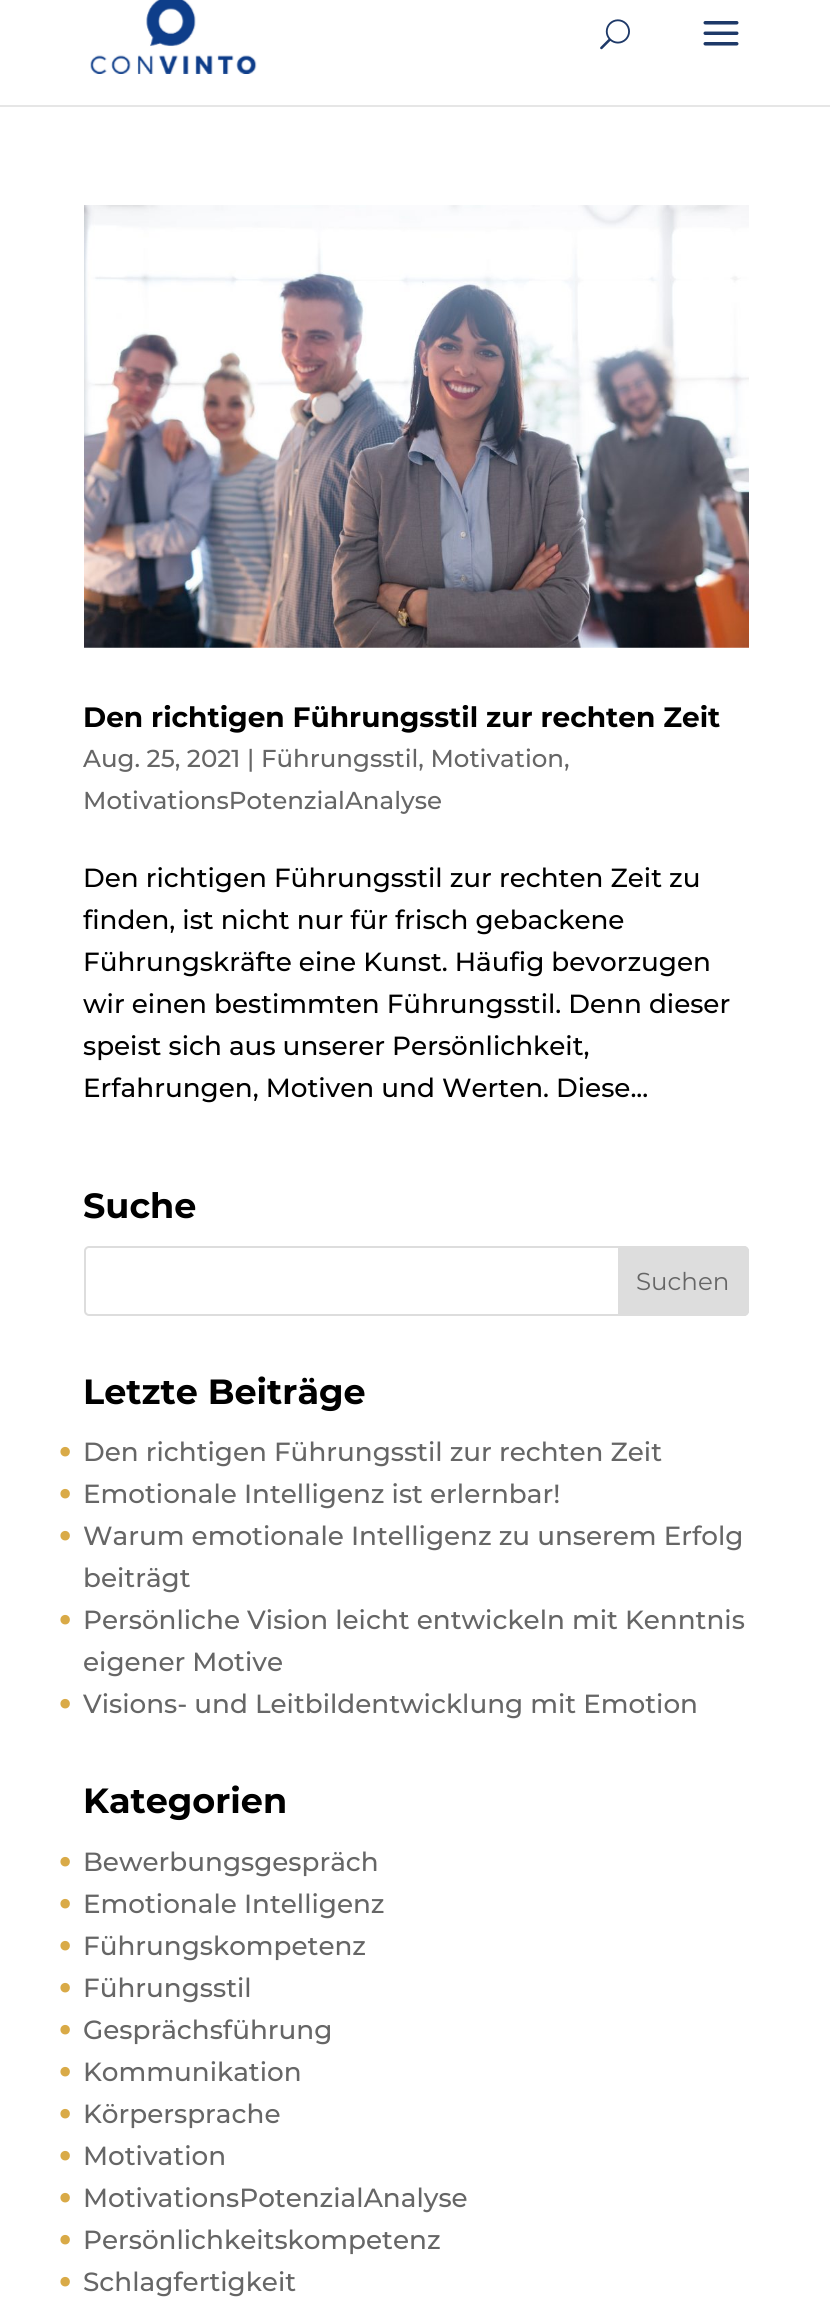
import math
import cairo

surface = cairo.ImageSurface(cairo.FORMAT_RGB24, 830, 2300)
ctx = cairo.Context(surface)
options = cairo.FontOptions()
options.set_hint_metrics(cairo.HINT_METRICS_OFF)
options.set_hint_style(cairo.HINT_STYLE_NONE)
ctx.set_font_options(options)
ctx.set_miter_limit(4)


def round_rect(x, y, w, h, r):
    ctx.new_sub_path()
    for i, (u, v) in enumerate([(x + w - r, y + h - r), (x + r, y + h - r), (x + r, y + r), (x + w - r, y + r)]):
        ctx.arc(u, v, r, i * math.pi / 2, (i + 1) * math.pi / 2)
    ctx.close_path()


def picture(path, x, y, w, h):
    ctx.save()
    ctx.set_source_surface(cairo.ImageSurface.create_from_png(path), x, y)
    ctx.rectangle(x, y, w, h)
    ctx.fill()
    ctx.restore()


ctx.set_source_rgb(1, 1, 1)
ctx.paint()
ctx.set_source_rgb(0.902, 0.902, 0.902)
ctx.rectangle(0, 105, 830, 2)
ctx.fill()
picture("img1.png", 90, 0, 167, 74)
picture("img2.png", 600, 19, 30, 31)
picture("img3.png", 703, 21, 36, 25)
picture("img4.png", 84, 205, 665, 443)
ctx.select_font_face("Montserrat", cairo.FONT_SLANT_NORMAL, cairo.FONT_WEIGHT_BOLD)
ctx.set_font_size(28)
ctx.set_source_rgb(0, 0, 0)
ctx.move_to(83, 727)
ctx.show_text("Den richtigen Führungsstil zur rechten Zeit")
ctx.select_font_face("Montserrat Medium")
ctx.set_font_size(24.5)
ctx.set_source_rgb(0.4, 0.4, 0.4)
ctx.move_to(83, 767)
ctx.show_text("Aug. 25, 2021 | Führungsstil, Motivation,")
ctx.move_to(83, 809)
ctx.show_text("MotivationsPotenzialAnalyse")
ctx.set_font_size(26.25)
ctx.set_source_rgb(0, 0, 0)
ctx.move_to(83, 887)
ctx.show_text("Den richtigen Führungsstil zur rechten Zeit zu")
ctx.move_to(83, 929)
ctx.show_text("finden, ist nicht nur für frisch gebackene")
ctx.move_to(83, 971)
ctx.show_text("Führungskräfte eine Kunst. Häufig bevorzugen")
ctx.move_to(83, 1013)
ctx.show_text("wir einen bestimmten Führungsstil. Denn dieser")
ctx.move_to(83, 1055)
ctx.show_text("speist sich aus unserer Persönlichkeit,")
ctx.move_to(83, 1097)
ctx.show_text("Erfahrungen, Motiven und Werten. Diese...")
ctx.select_font_face("Montserrat", cairo.FONT_SLANT_NORMAL, cairo.FONT_WEIGHT_BOLD)
ctx.set_font_size(35)
ctx.move_to(83, 1218)
ctx.show_text("Suche")
round_rect(85, 1247, 663, 68, 4)
ctx.set_source_rgb(0.867, 0.867, 0.867)
ctx.stroke()
ctx.new_path()
ctx.move_to(619, 1247)
ctx.line_to(744, 1247)
ctx.curve_to(746, 1247, 748, 1249, 748, 1251)
ctx.line_to(748, 1311)
ctx.curve_to(748, 1313, 746, 1315, 744, 1315)
ctx.line_to(619, 1315)
ctx.close_path()
ctx.fill_preserve()
ctx.stroke()
ctx.select_font_face("Montserrat")
ctx.set_font_size(24.5)
ctx.set_source_rgb(0.4, 0.4, 0.4)
ctx.move_to(636, 1290)
ctx.show_text("Suchen")
ctx.select_font_face("Montserrat", cairo.FONT_SLANT_NORMAL, cairo.FONT_WEIGHT_BOLD)
ctx.set_font_size(35)
ctx.set_source_rgb(0, 0, 0)
ctx.move_to(83, 1404)
ctx.show_text("Letzte Beiträge")
ctx.select_font_face("Montserrat Medium")
ctx.set_font_size(52)
ctx.set_source_rgb(0.851, 0.667, 0.278)
ctx.move_to(57, 1466)
ctx.show_text("•")
ctx.set_font_size(26.25)
ctx.set_source_rgb(0.4, 0.4, 0.4)
ctx.move_to(83, 1461)
ctx.show_text("Den richtigen Führungsstil zur rechten Zeit")
ctx.set_font_size(52)
ctx.set_source_rgb(0.851, 0.667, 0.278)
ctx.move_to(57, 1508)
ctx.show_text("•")
ctx.set_font_size(26.25)
ctx.set_source_rgb(0.4, 0.4, 0.4)
ctx.move_to(83, 1503)
ctx.show_text("Emotionale Intelligenz ist erlernbar!")
ctx.set_font_size(52)
ctx.set_source_rgb(0.851, 0.667, 0.278)
ctx.move_to(57, 1550)
ctx.show_text("•")
ctx.set_font_size(26.25)
ctx.set_source_rgb(0.4, 0.4, 0.4)
ctx.move_to(83, 1545)
ctx.show_text("Warum emotionale Intelligenz zu unserem Erfolg")
ctx.move_to(83, 1587)
ctx.show_text("beiträgt")
ctx.set_font_size(52)
ctx.set_source_rgb(0.851, 0.667, 0.278)
ctx.move_to(57, 1634)
ctx.show_text("•")
ctx.set_font_size(26.25)
ctx.set_source_rgb(0.4, 0.4, 0.4)
ctx.move_to(83, 1629)
ctx.show_text("Persönliche Vision leicht entwickeln mit Kenntnis")
ctx.move_to(83, 1671)
ctx.show_text("eigener Motive")
ctx.set_font_size(52)
ctx.set_source_rgb(0.851, 0.667, 0.278)
ctx.move_to(57, 1718)
ctx.show_text("•")
ctx.set_font_size(26.25)
ctx.set_source_rgb(0.4, 0.4, 0.4)
ctx.move_to(83, 1713)
ctx.show_text("Visions- und Leitbildentwicklung mit Emotion")
ctx.select_font_face("Montserrat", cairo.FONT_SLANT_NORMAL, cairo.FONT_WEIGHT_BOLD)
ctx.set_font_size(35)
ctx.set_source_rgb(0, 0, 0)
ctx.move_to(83, 1813)
ctx.show_text("Kategorien")
ctx.select_font_face("Montserrat Medium")
ctx.set_font_size(52)
ctx.set_source_rgb(0.851, 0.667, 0.278)
ctx.move_to(57, 1876)
ctx.show_text("•")
ctx.set_font_size(26.25)
ctx.set_source_rgb(0.4, 0.4, 0.4)
ctx.move_to(83, 1871)
ctx.show_text("Bewerbungsgespräch")
ctx.set_font_size(52)
ctx.set_source_rgb(0.851, 0.667, 0.278)
ctx.move_to(57, 1918)
ctx.show_text("•")
ctx.set_font_size(26.25)
ctx.set_source_rgb(0.4, 0.4, 0.4)
ctx.move_to(83, 1913)
ctx.show_text("Emotionale Intelligenz")
ctx.set_font_size(52)
ctx.set_source_rgb(0.851, 0.667, 0.278)
ctx.move_to(57, 1960)
ctx.show_text("•")
ctx.set_font_size(26.25)
ctx.set_source_rgb(0.4, 0.4, 0.4)
ctx.move_to(83, 1955)
ctx.show_text("Führungskompetenz")
ctx.set_font_size(52)
ctx.set_source_rgb(0.851, 0.667, 0.278)
ctx.move_to(57, 2002)
ctx.show_text("•")
ctx.set_font_size(26.25)
ctx.set_source_rgb(0.4, 0.4, 0.4)
ctx.move_to(83, 1997)
ctx.show_text("Führungsstil")
ctx.set_font_size(52)
ctx.set_source_rgb(0.851, 0.667, 0.278)
ctx.move_to(57, 2044)
ctx.show_text("•")
ctx.set_font_size(26.25)
ctx.set_source_rgb(0.4, 0.4, 0.4)
ctx.move_to(83, 2039)
ctx.show_text("Gesprächsführung")
ctx.set_font_size(52)
ctx.set_source_rgb(0.851, 0.667, 0.278)
ctx.move_to(57, 2086)
ctx.show_text("•")
ctx.set_font_size(26.25)
ctx.set_source_rgb(0.4, 0.4, 0.4)
ctx.move_to(83, 2081)
ctx.show_text("Kommunikation")
ctx.set_font_size(52)
ctx.set_source_rgb(0.851, 0.667, 0.278)
ctx.move_to(57, 2128)
ctx.show_text("•")
ctx.set_font_size(26.25)
ctx.set_source_rgb(0.4, 0.4, 0.4)
ctx.move_to(83, 2123)
ctx.show_text("Körpersprache")
ctx.set_font_size(52)
ctx.set_source_rgb(0.851, 0.667, 0.278)
ctx.move_to(57, 2170)
ctx.show_text("•")
ctx.set_font_size(26.25)
ctx.set_source_rgb(0.4, 0.4, 0.4)
ctx.move_to(83, 2165)
ctx.show_text("Motivation")
ctx.set_font_size(52)
ctx.set_source_rgb(0.851, 0.667, 0.278)
ctx.move_to(57, 2212)
ctx.show_text("•")
ctx.set_font_size(26.25)
ctx.set_source_rgb(0.4, 0.4, 0.4)
ctx.move_to(83, 2207)
ctx.show_text("MotivationsPotenzialAnalyse")
ctx.set_font_size(52)
ctx.set_source_rgb(0.851, 0.667, 0.278)
ctx.move_to(57, 2254)
ctx.show_text("•")
ctx.set_font_size(26.25)
ctx.set_source_rgb(0.4, 0.4, 0.4)
ctx.move_to(83, 2249)
ctx.show_text("Persönlichkeitskompetenz")
ctx.set_font_size(52)
ctx.set_source_rgb(0.851, 0.667, 0.278)
ctx.move_to(57, 2296)
ctx.show_text("•")
ctx.set_font_size(26.25)
ctx.set_source_rgb(0.4, 0.4, 0.4)
ctx.move_to(83, 2291)
ctx.show_text("Schlagfertigkeit")
surface.write_to_png("page.png")
